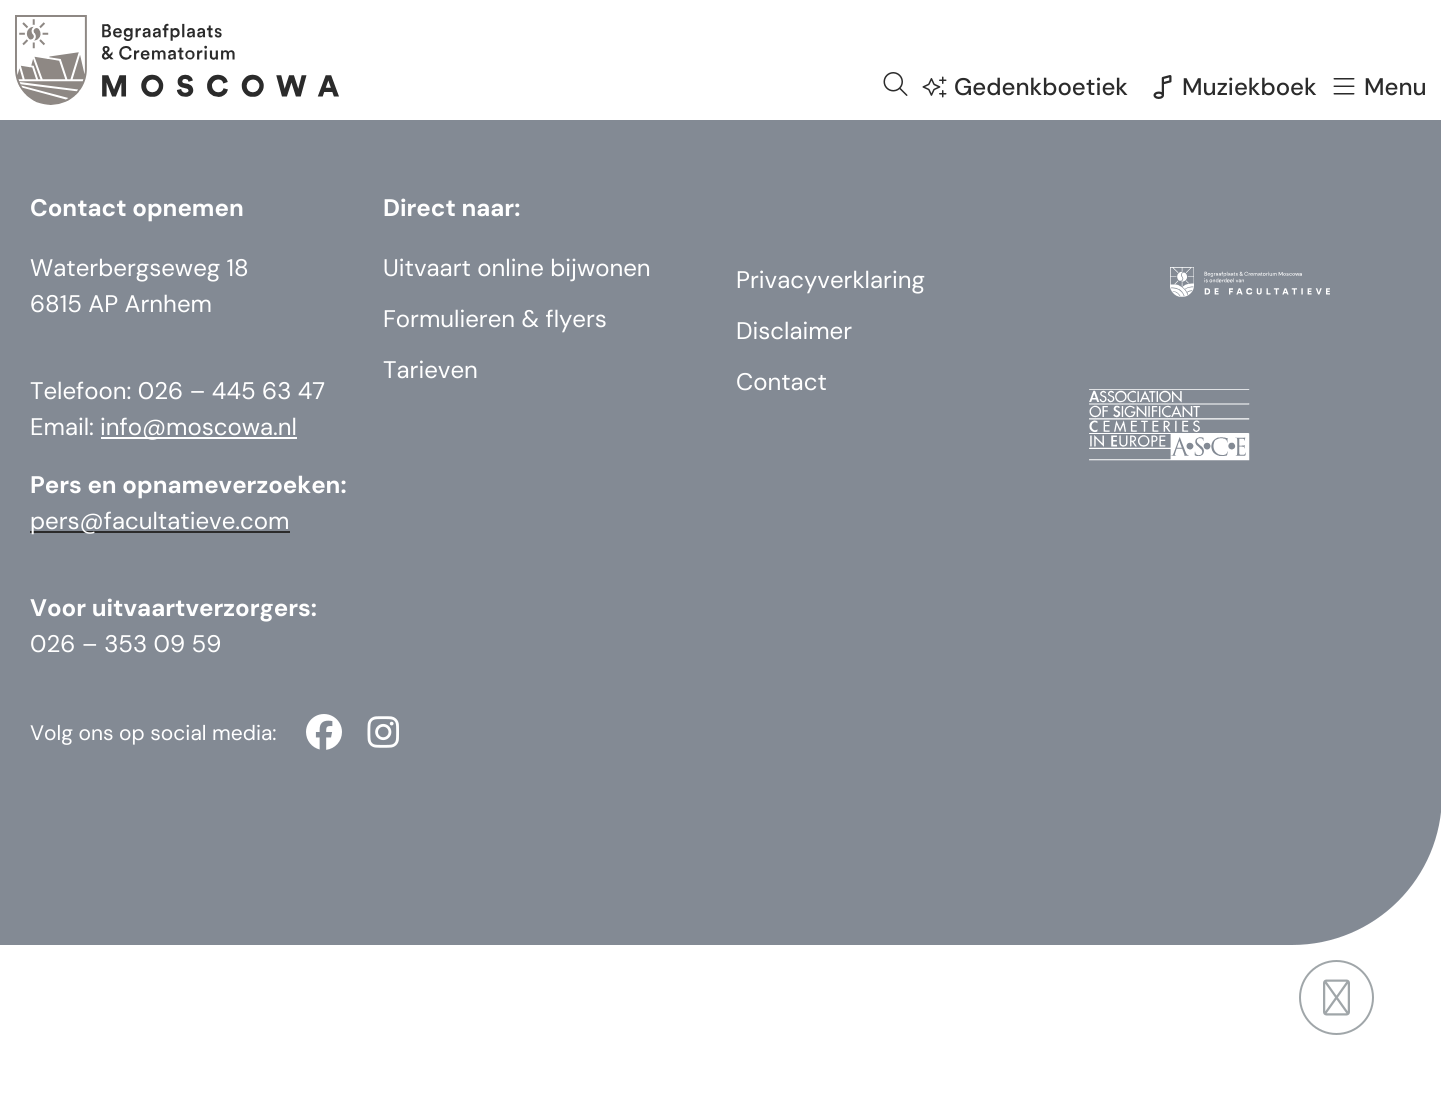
import math
import cairo

surface = cairo.ImageSurface(cairo.FORMAT_RGB24, 1441, 1105)
ctx = cairo.Context(surface)
options = cairo.FontOptions()
options.set_hint_metrics(cairo.HINT_METRICS_OFF)
options.set_hint_style(cairo.HINT_STYLE_NONE)
ctx.set_font_options(options)
ctx.set_miter_limit(4)


def picture(path, x, y, w, h):
    ctx.save()
    ctx.set_source_surface(cairo.ImageSurface.create_from_png(path), x, y)
    ctx.rectangle(x, y, w, h)
    ctx.fill()
    ctx.restore()


ctx.set_source_rgb(1, 1, 1)
ctx.paint()
ctx.set_source_rgb(0.514, 0.541, 0.58)
ctx.new_path()
ctx.move_to(0, 77)
ctx.line_to(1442, 77)
ctx.line_to(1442, 795)
ctx.curve_to(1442, 878, 1375, 945, 1292, 945)
ctx.line_to(0, 945)
ctx.close_path()
ctx.fill()
ctx.set_source_rgb(1, 1, 1)
ctx.rectangle(0, 77, 1441, 43)
ctx.fill()
picture("img1.png", 15, 15, 324, 90)
picture("img2.png", 883, 72, 25, 24)
picture("img3.png", 922, 76, 25, 22)
ctx.select_font_face("DM Sans Medium")
ctx.set_font_size(24)
ctx.set_source_rgb(0.169, 0.169, 0.169)
ctx.move_to(954, 95)
ctx.show_text("Gedenkboetiek")
picture("img4.png", 1153, 75, 19, 24)
ctx.move_to(1182, 95)
ctx.show_text("Muziekboek")
picture("img5.png", 1333, 78, 22, 17)
ctx.move_to(1364, 95)
ctx.show_text("Menu")
ctx.select_font_face("DM Sans", cairo.FONT_SLANT_NORMAL, cairo.FONT_WEIGHT_BOLD)
ctx.set_source_rgb(1, 1, 1)
ctx.move_to(30, 216)
ctx.show_text("Contact opnemen")
ctx.select_font_face("DM Sans")
ctx.move_to(30, 276)
ctx.show_text("Waterbergseweg 18")
ctx.move_to(30, 312)
ctx.show_text("6815 AP Arnhem")
ctx.move_to(30, 399)
ctx.show_text("Telefoon: 026 – 445 63 47")
ctx.move_to(30, 435)
ctx.show_text("Email:")
ctx.rectangle(101, 437, 196, 2)
ctx.fill()
ctx.move_to(100, 435)
ctx.show_text("info@moscowa.nl")
ctx.select_font_face("DM Sans", cairo.FONT_SLANT_NORMAL, cairo.FONT_WEIGHT_BOLD)
ctx.move_to(30, 493)
ctx.show_text("Pers en opnameverzoeken:")
ctx.set_source_rgb(0.169, 0.169, 0.169)
ctx.rectangle(30, 531, 260, 2)
ctx.fill()
ctx.select_font_face("DM Sans")
ctx.set_source_rgb(1, 1, 1)
ctx.move_to(30, 529)
ctx.show_text("pers@facultatieve.com")
ctx.select_font_face("DM Sans", cairo.FONT_SLANT_NORMAL, cairo.FONT_WEIGHT_BOLD)
ctx.move_to(30, 616)
ctx.show_text("Voor uitvaartverzorgers:")
ctx.select_font_face("DM Sans")
ctx.move_to(30, 652)
ctx.show_text("026 – 353 09 59")
ctx.select_font_face("DM Sans", cairo.FONT_SLANT_NORMAL, cairo.FONT_WEIGHT_BOLD)
ctx.move_to(383, 216)
ctx.show_text("Direct naar:")
ctx.select_font_face("DM Sans")
ctx.move_to(383, 276)
ctx.show_text("Uitvaart online bijwonen")
ctx.move_to(383, 327)
ctx.show_text("Formulieren & flyers")
ctx.move_to(383, 378)
ctx.show_text("Tarieven")
ctx.move_to(736, 288)
ctx.show_text("Privacyverklaring")
ctx.move_to(736, 339)
ctx.show_text("Disclaimer")
ctx.move_to(736, 390)
ctx.show_text("Contact")
picture("img6.png", 1170, 267, 160, 30)
picture("img7.png", 1089, 389, 161, 72)
ctx.set_font_size(21)
ctx.move_to(30, 740)
ctx.show_text("Volg ons op social media:")
picture("img8.png", 306, 714, 36, 36)
picture("img9.png", 367, 716, 32, 32)
ctx.arc(1336.5, 997.5, 36.5, 0, 2 * math.pi)
ctx.set_source_rgb(0.627, 0.651, 0.663)
ctx.stroke()
picture("img10.png", 1323, 979, 27, 37)
surface.write_to_png("page.png")
